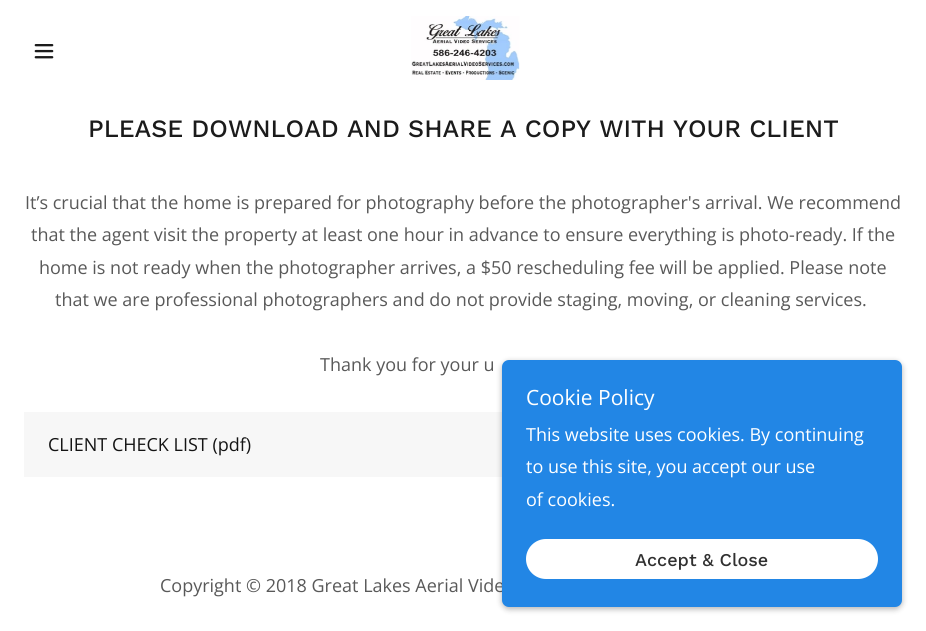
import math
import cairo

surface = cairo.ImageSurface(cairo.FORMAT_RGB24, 926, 631)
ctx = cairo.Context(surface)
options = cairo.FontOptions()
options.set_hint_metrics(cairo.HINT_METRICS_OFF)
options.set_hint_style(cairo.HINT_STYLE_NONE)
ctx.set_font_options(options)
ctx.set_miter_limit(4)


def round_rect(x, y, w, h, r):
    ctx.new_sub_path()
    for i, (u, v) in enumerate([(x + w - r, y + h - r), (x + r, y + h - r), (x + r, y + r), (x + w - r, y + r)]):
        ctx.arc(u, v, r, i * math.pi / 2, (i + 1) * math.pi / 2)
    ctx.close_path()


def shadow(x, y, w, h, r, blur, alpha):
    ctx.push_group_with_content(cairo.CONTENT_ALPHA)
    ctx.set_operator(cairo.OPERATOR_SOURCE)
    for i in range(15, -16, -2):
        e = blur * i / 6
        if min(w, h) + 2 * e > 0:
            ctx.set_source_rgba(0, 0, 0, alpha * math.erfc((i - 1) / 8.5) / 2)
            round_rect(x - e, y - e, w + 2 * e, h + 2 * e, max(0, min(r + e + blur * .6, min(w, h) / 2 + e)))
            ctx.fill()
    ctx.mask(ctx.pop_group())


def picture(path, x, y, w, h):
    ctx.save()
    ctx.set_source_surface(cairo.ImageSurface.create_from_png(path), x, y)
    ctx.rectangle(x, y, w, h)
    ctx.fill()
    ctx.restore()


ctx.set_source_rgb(1, 1, 1)
ctx.paint()
picture("img1.png", 34, 44, 20, 15)
picture("img2.png", 411, 16, 109, 64)
ctx.select_font_face("Work Sans Medium")
ctx.set_font_size(25)
ctx.set_source_rgb(0.106, 0.106, 0.106)
ctx.move_to(88, 137)
ctx.show_text("PLEASE DOWNLOAD AND SHARE A COPY WITH YOUR CLIENT")
ctx.select_font_face("Open Sans")
ctx.set_font_size(18)
ctx.set_source_rgb(0.349, 0.349, 0.349)
ctx.move_to(25, 209)
ctx.show_text("It’s crucial that the home is prepared for photography before the photographer's arrival. We recommend")
ctx.move_to(31, 241)
ctx.show_text("that the agent visit the property at least one hour in advance to ensure everything is photo-ready. If the")
ctx.move_to(39, 274)
ctx.show_text("home is not ready when the photographer arrives, a $50 rescheduling fee will be applied. Please note")
ctx.move_to(55, 306)
ctx.show_text("that we are professional photographers and do not provide staging, moving, or cleaning services.")
ctx.move_to(320, 371)
ctx.show_text("Thank you for your u")
ctx.set_source_rgb(0.965, 0.965, 0.965)
ctx.rectangle(24, 412, 478, 65)
ctx.fill()
ctx.set_source_rgb(0.082, 0.082, 0.082)
ctx.move_to(48, 451)
ctx.show_text("CLIENT CHECK LIST (pdf)")
ctx.set_source_rgb(0, 0, 0)
shadow(502, 362, 400, 247, 7, 3, 0.3)
ctx.set_source_rgb(0.349, 0.349, 0.349)
ctx.move_to(160, 592)
ctx.show_text("Copyright © 2018 Great Lakes Aerial Vide")
ctx.set_source_rgb(0.133, 0.525, 0.898)
round_rect(502, 360, 400, 247, 7)
ctx.fill()
ctx.set_font_size(21)
ctx.set_source_rgb(1, 1, 1)
ctx.move_to(526, 405)
ctx.show_text("Cookie Policy")
ctx.set_font_size(18)
ctx.move_to(526, 441)
ctx.show_text("This website uses cookies. By continuing")
ctx.move_to(526, 473)
ctx.show_text("to use this site, you accept our use")
ctx.move_to(526, 506)
ctx.show_text("of cookies.")
round_rect(526, 539, 352, 40, 20)
ctx.fill()
ctx.select_font_face("Work Sans Medium")
ctx.set_source_rgb(0.188, 0.188, 0.188)
ctx.move_to(635, 566)
ctx.show_text("Accept & Close")
surface.write_to_png("page.png")
